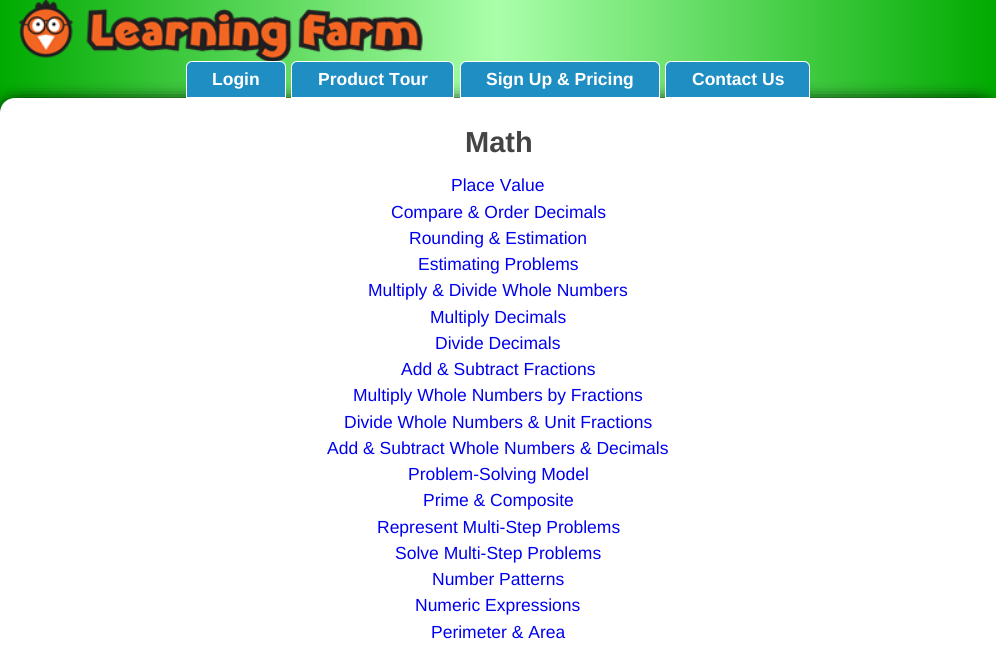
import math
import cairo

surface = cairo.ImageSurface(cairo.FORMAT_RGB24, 996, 653)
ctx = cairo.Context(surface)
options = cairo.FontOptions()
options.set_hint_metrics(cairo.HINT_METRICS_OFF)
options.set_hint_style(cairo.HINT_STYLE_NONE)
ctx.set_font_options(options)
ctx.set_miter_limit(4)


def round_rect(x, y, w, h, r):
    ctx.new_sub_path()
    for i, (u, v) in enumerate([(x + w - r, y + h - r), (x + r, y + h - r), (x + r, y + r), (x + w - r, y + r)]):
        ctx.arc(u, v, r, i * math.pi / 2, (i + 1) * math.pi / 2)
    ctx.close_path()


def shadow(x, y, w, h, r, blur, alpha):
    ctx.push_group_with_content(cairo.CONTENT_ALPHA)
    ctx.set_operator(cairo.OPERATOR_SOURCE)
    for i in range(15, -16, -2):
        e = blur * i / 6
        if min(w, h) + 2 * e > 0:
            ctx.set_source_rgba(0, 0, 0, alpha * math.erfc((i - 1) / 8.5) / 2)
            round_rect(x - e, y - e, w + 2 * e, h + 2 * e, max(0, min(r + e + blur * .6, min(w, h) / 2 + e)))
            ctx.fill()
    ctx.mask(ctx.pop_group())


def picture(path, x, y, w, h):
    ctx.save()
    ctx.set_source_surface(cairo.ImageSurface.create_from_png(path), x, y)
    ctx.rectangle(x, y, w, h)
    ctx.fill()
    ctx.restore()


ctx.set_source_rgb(1, 1, 1)
ctx.paint()
gradient = cairo.LinearGradient(0, 75, 996, 75)
gradient.add_color_stop_rgba(0, 0, 0.667, 0, 1)
gradient.add_color_stop_rgba(0.5, 0.667, 1, 0.667, 1)
gradient.add_color_stop_rgba(1, 0, 0.667, 0, 1)
ctx.set_source(gradient)
ctx.rectangle(0, 0, 996, 113)
ctx.fill()
picture("img1.png", 18, 0, 405, 62)
ctx.set_source_rgb(0, 0, 0)
shadow(1, 105, 982, 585, 8, 9.5, 1)
shadow(14, 105, 981, 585, 8, 9.5, 1)
ctx.set_source_rgb(0.122, 0.557, 0.761)
ctx.new_path()
ctx.move_to(192, 61.5)
ctx.line_to(280, 61.5)
ctx.curve_to(283, 61.5, 285.5, 64, 285.5, 67)
ctx.line_to(285.5, 97.5)
ctx.line_to(186.5, 97.5)
ctx.line_to(186.5, 67)
ctx.curve_to(186.5, 64, 189, 61.5, 192, 61.5)
ctx.close_path()
ctx.fill_preserve()
ctx.set_source_rgb(1, 1, 1)
ctx.set_line_width(1)
ctx.stroke()
ctx.select_font_face("Liberation Sans", cairo.FONT_SLANT_NORMAL, cairo.FONT_WEIGHT_BOLD)
ctx.set_font_size(17.5)
ctx.move_to(212, 85)
ctx.show_text("Login")
ctx.set_source_rgb(0.122, 0.557, 0.761)
ctx.new_path()
ctx.move_to(297, 61.5)
ctx.line_to(448, 61.5)
ctx.curve_to(451, 61.5, 453.5, 64, 453.5, 67)
ctx.line_to(453.5, 97.5)
ctx.line_to(291.5, 97.5)
ctx.line_to(291.5, 67)
ctx.curve_to(291.5, 64, 294, 61.5, 297, 61.5)
ctx.close_path()
ctx.fill_preserve()
ctx.set_source_rgb(1, 1, 1)
ctx.stroke()
ctx.move_to(318, 85)
ctx.show_text("Product Tour")
ctx.set_source_rgb(0.122, 0.557, 0.761)
ctx.new_path()
ctx.move_to(466, 61.5)
ctx.line_to(654, 61.5)
ctx.curve_to(657, 61.5, 659.5, 64, 659.5, 67)
ctx.line_to(659.5, 97.5)
ctx.line_to(460.5, 97.5)
ctx.line_to(460.5, 67)
ctx.curve_to(460.5, 64, 463, 61.5, 466, 61.5)
ctx.close_path()
ctx.fill_preserve()
ctx.set_source_rgb(1, 1, 1)
ctx.stroke()
ctx.move_to(486, 85)
ctx.show_text("Sign Up & Pricing")
ctx.set_source_rgb(0.122, 0.557, 0.761)
ctx.new_path()
ctx.move_to(671, 61.5)
ctx.line_to(804, 61.5)
ctx.curve_to(807, 61.5, 809.5, 64, 809.5, 67)
ctx.line_to(809.5, 97.5)
ctx.line_to(665.5, 97.5)
ctx.line_to(665.5, 67)
ctx.curve_to(665.5, 64, 668, 61.5, 671, 61.5)
ctx.close_path()
ctx.fill_preserve()
ctx.set_source_rgb(1, 1, 1)
ctx.stroke()
ctx.move_to(692, 85)
ctx.show_text("Contact Us")
ctx.new_path()
ctx.move_to(15, 98)
ctx.line_to(996, 98)
ctx.line_to(996, 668)
ctx.line_to(0, 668)
ctx.line_to(0, 113)
ctx.curve_to(0, 104.5, 6.5, 98, 15, 98)
ctx.close_path()
ctx.fill()
ctx.set_font_size(29)
ctx.set_source_rgb(0.267, 0.267, 0.267)
ctx.move_to(465, 152)
ctx.show_text("Math")
ctx.select_font_face("Liberation Sans")
ctx.set_font_size(17.5)
ctx.set_source_rgb(0, 0, 0.933)
ctx.move_to(451, 191)
ctx.show_text("Place Value")
ctx.move_to(391, 218)
ctx.show_text("Compare & Order Decimals")
ctx.move_to(409, 244)
ctx.show_text("Rounding & Estimation")
ctx.move_to(418, 270)
ctx.show_text("Estimating Problems")
ctx.move_to(368, 296)
ctx.show_text("Multiply & Divide Whole Numbers")
ctx.move_to(430, 323)
ctx.show_text("Multiply Decimals")
ctx.move_to(435, 349)
ctx.show_text("Divide Decimals")
ctx.move_to(401, 375)
ctx.show_text("Add & Subtract Fractions")
ctx.move_to(353, 401)
ctx.show_text("Multiply Whole Numbers by Fractions")
ctx.move_to(344, 428)
ctx.show_text("Divide Whole Numbers & Unit Fractions")
ctx.move_to(327, 454)
ctx.show_text("Add & Subtract Whole Numbers & Decimals")
ctx.move_to(408, 480)
ctx.show_text("Problem-Solving Model")
ctx.move_to(423, 506)
ctx.show_text("Prime & Composite")
ctx.move_to(377, 533)
ctx.show_text("Represent Multi-Step Problems")
ctx.move_to(395, 559)
ctx.show_text("Solve Multi-Step Problems")
ctx.move_to(432, 585)
ctx.show_text("Number Patterns")
ctx.move_to(415, 611)
ctx.show_text("Numeric Expressions")
ctx.move_to(431, 638)
ctx.show_text("Perimeter & Area")
surface.write_to_png("page.png")
